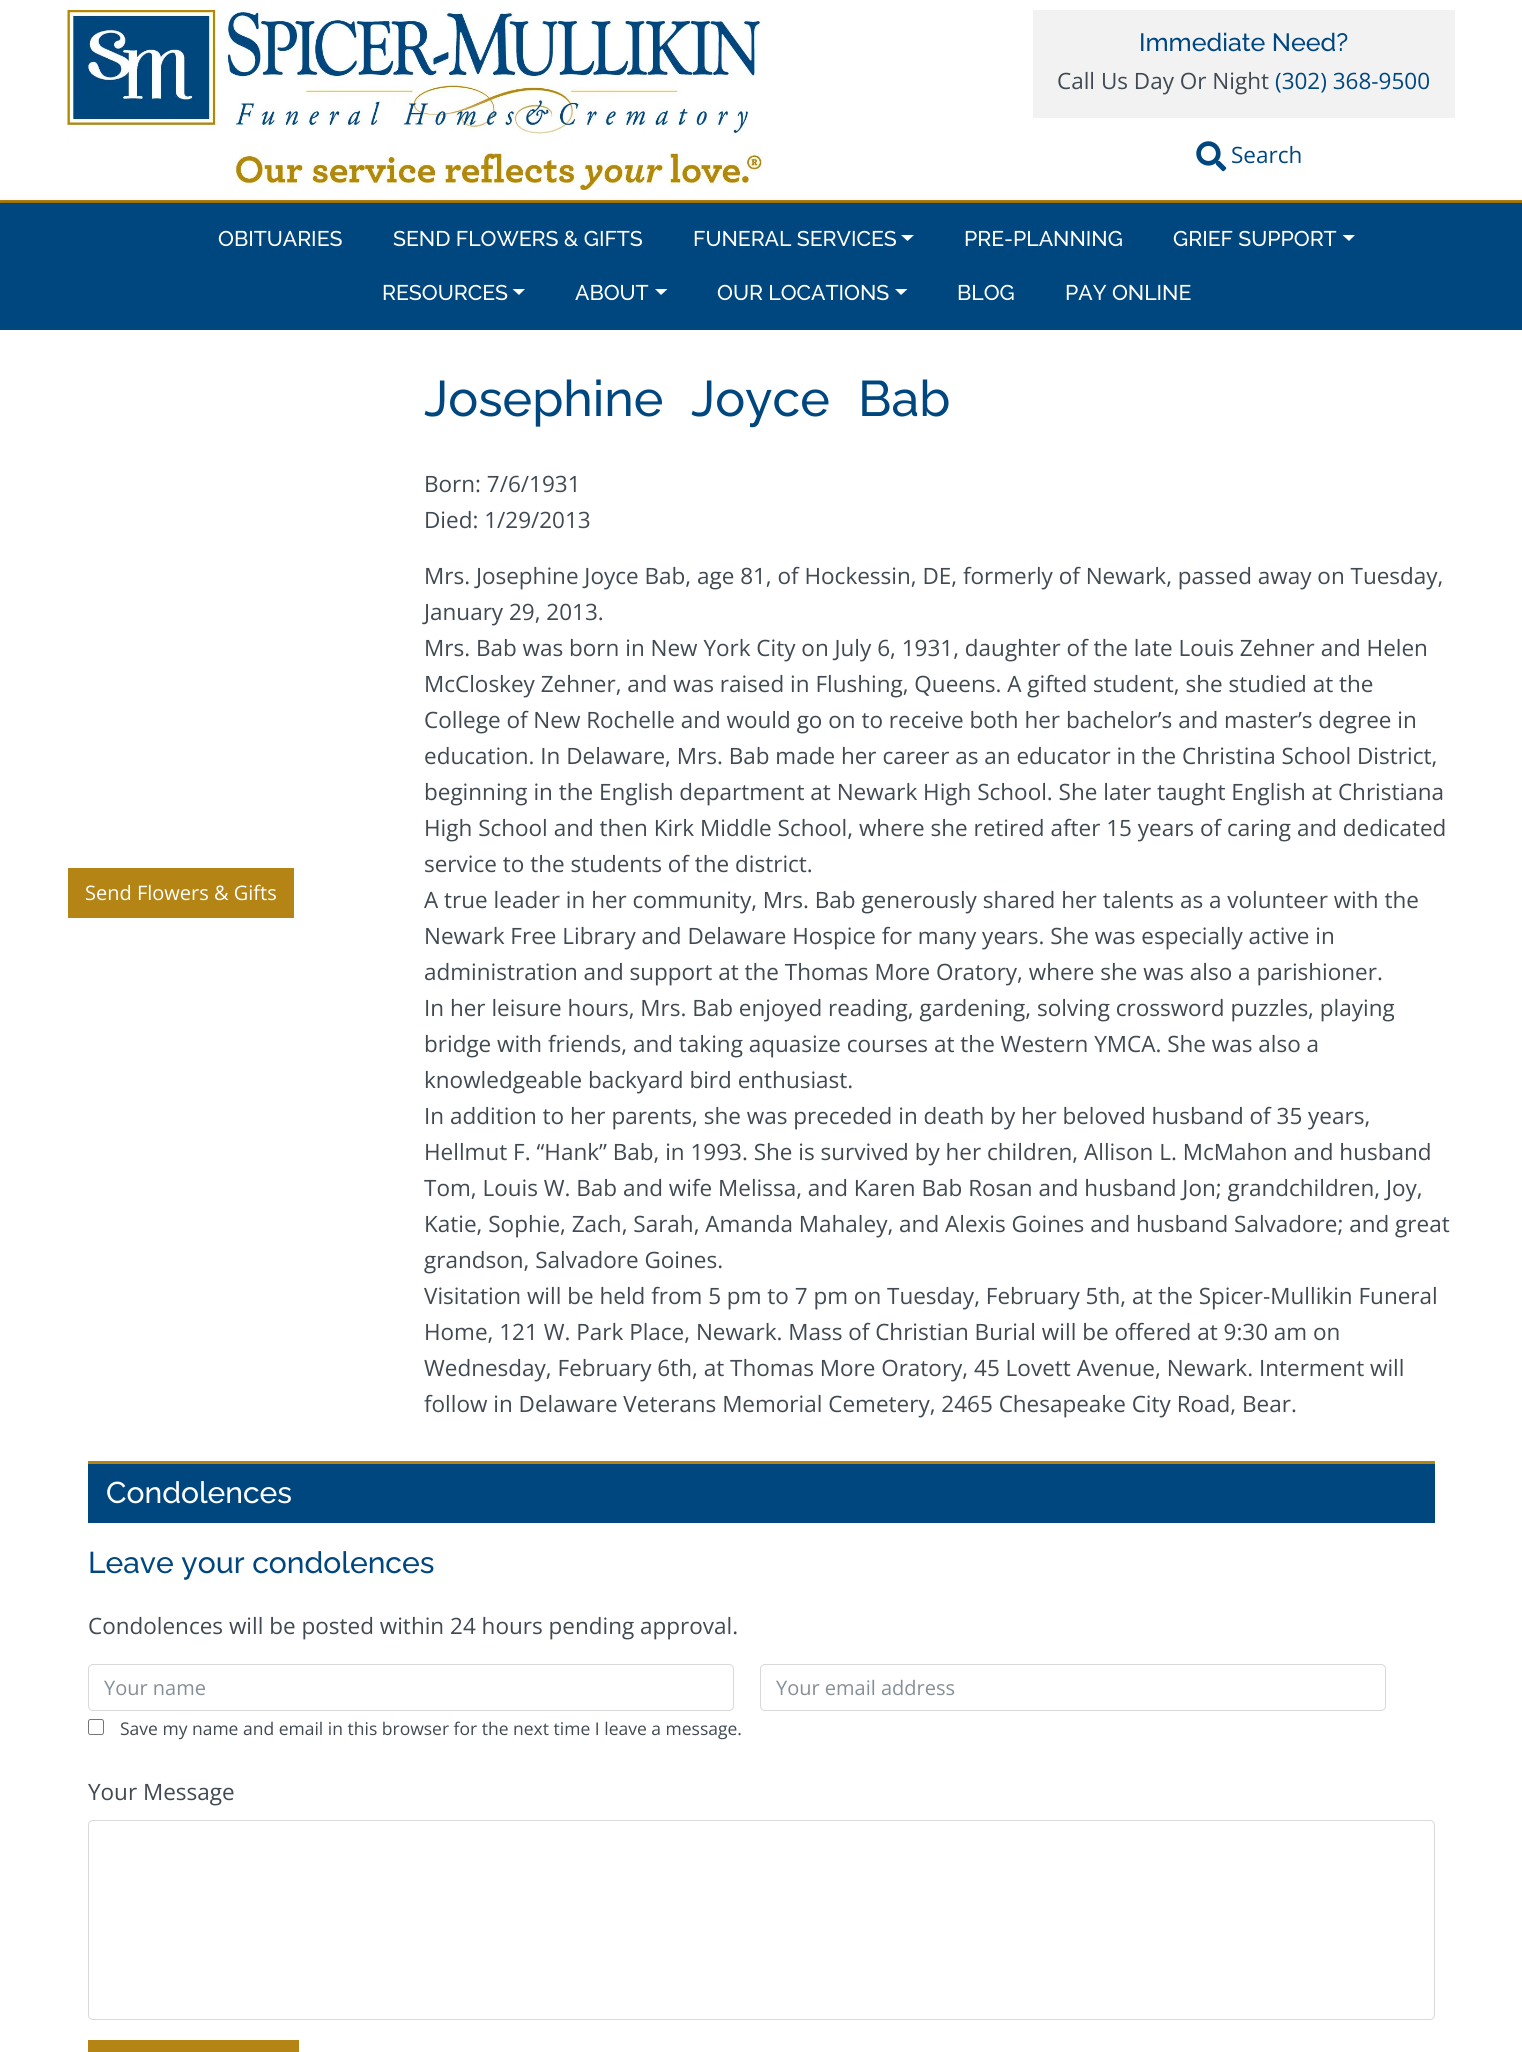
import math
import cairo

surface = cairo.ImageSurface(cairo.FORMAT_RGB24, 1522, 2052)
ctx = cairo.Context(surface)
options = cairo.FontOptions()
options.set_hint_metrics(cairo.HINT_METRICS_OFF)
options.set_hint_style(cairo.HINT_STYLE_NONE)
ctx.set_font_options(options)
ctx.set_miter_limit(4)


def round_rect(x, y, w, h, r):
    ctx.new_sub_path()
    for i, (u, v) in enumerate([(x + w - r, y + h - r), (x + r, y + h - r), (x + r, y + r), (x + w - r, y + r)]):
        ctx.arc(u, v, r, i * math.pi / 2, (i + 1) * math.pi / 2)
    ctx.close_path()


def shadow(x, y, w, h, r, blur, alpha):
    ctx.push_group_with_content(cairo.CONTENT_ALPHA)
    ctx.set_operator(cairo.OPERATOR_SOURCE)
    for i in range(15, -16, -2):
        e = blur * i / 6
        if min(w, h) + 2 * e > 0:
            ctx.set_source_rgba(0, 0, 0, alpha * math.erfc((i - 1) / 8.5) / 2)
            round_rect(x - e, y - e, w + 2 * e, h + 2 * e, max(0, min(r + e + blur * .6, min(w, h) / 2 + e)))
            ctx.fill()
    ctx.mask(ctx.pop_group())


def picture(path, x, y, w, h):
    ctx.save()
    ctx.set_source_surface(cairo.ImageSurface.create_from_png(path), x, y)
    ctx.rectangle(x, y, w, h)
    ctx.fill()
    ctx.restore()


ctx.set_source_rgb(1, 1, 1)
ctx.paint()
ctx.set_source_rgb(0.706, 0.518, 0.082)
ctx.rectangle(0, 200, 1522, 3)
ctx.fill()
picture("img1.png", 67, 10, 695, 180)
ctx.set_source_rgb(0.949, 0.949, 0.949)
ctx.rectangle(1033, 10, 422, 108)
ctx.fill()
ctx.select_font_face("Raleway Medium")
ctx.set_font_size(25)
ctx.set_source_rgb(0, 0.278, 0.498)
ctx.move_to(1139, 51)
ctx.show_text("Immediate Need?")
ctx.select_font_face("Open Sans")
ctx.set_font_size(22.5)
ctx.set_source_rgb(0.255, 0.29, 0.322)
ctx.move_to(1057, 89)
ctx.show_text("Call Us Day Or Night")
ctx.set_source_rgb(0, 0.278, 0.498)
ctx.move_to(1275, 89)
ctx.show_text("(302) 368-9500")
picture("img2.png", 1196, 141, 31, 31)
ctx.move_to(1231, 163)
ctx.show_text("Search")
ctx.set_source_rgb(0, 0, 0)
shadow(0, 203, 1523, 127, 0, 2.5, 0.35)
ctx.set_source_rgb(0, 0.278, 0.498)
ctx.rectangle(0, 203, 1522, 127)
ctx.fill()
ctx.select_font_face("Raleway Medium")
ctx.set_font_size(21.25)
ctx.set_source_rgb(1, 1, 1)
ctx.move_to(218, 246)
ctx.show_text("OBITUARIES")
ctx.move_to(393, 246)
ctx.show_text("SEND FLOWERS & GIFTS")
ctx.move_to(693, 246)
ctx.show_text("FUNERAL SERVICES")
ctx.new_path()
ctx.move_to(901, 235)
ctx.line_to(914, 235)
ctx.line_to(907.5, 241)
ctx.close_path()
ctx.fill()
ctx.move_to(964, 246)
ctx.show_text("PRE-PLANNING")
ctx.move_to(1173, 246)
ctx.show_text("GRIEF SUPPORT")
ctx.new_path()
ctx.move_to(1342.5, 235)
ctx.line_to(1355, 235)
ctx.line_to(1349, 241)
ctx.close_path()
ctx.fill()
ctx.move_to(382, 300)
ctx.show_text("RESOURCES")
ctx.new_path()
ctx.move_to(512.5, 289)
ctx.line_to(525, 289)
ctx.line_to(519, 295)
ctx.close_path()
ctx.fill()
ctx.move_to(575, 300)
ctx.show_text("ABOUT")
ctx.new_path()
ctx.move_to(655, 289)
ctx.line_to(667.5, 289)
ctx.line_to(661, 295)
ctx.close_path()
ctx.fill()
ctx.move_to(717, 300)
ctx.show_text("OUR LOCATIONS")
ctx.new_path()
ctx.move_to(895, 289)
ctx.line_to(907.5, 289)
ctx.line_to(901, 295)
ctx.close_path()
ctx.fill()
ctx.move_to(957, 300)
ctx.show_text("BLOG")
ctx.move_to(1065, 300)
ctx.show_text("PAY ONLINE")
ctx.rectangle(0, 330, 1522, 5)
ctx.fill()
ctx.set_source_rgb(0.706, 0.518, 0.082)
ctx.rectangle(68, 868, 226, 50)
ctx.fill()
ctx.select_font_face("Open Sans")
ctx.set_font_size(20)
ctx.set_source_rgb(1, 1, 1)
ctx.move_to(85, 900)
ctx.show_text("Send Flowers & Gifts")
ctx.select_font_face("Raleway Medium")
ctx.set_font_size(50)
ctx.set_source_rgb(0, 0.278, 0.498)
ctx.move_to(424, 416)
ctx.show_text("Josephine")
ctx.move_to(691, 416)
ctx.show_text("Joyce")
ctx.move_to(858, 416)
ctx.show_text("Bab")
ctx.select_font_face("Open Sans")
ctx.set_font_size(22.5)
ctx.set_source_rgb(0.255, 0.29, 0.322)
ctx.move_to(424, 492)
ctx.show_text("Born: 7/6/1931")
ctx.move_to(424, 528)
ctx.show_text("Died: 1/29/2013")
ctx.move_to(424, 584)
ctx.show_text("Mrs. Josephine Joyce Bab, age 81, of Hockessin, DE, formerly of Newark, passed away on Tuesday,")
ctx.move_to(424, 620)
ctx.show_text("January 29, 2013.")
ctx.move_to(424, 656)
ctx.show_text("Mrs. Bab was born in New York City on July 6, 1931, daughter of the late Louis Zehner and Helen")
ctx.move_to(424, 692)
ctx.show_text("McCloskey Zehner, and was raised in Flushing, Queens. A gifted student, she studied at the")
ctx.move_to(424, 728)
ctx.show_text("College of New Rochelle and would go on to receive both her bachelor’s and master’s degree in")
ctx.move_to(424, 764)
ctx.show_text("education. In Delaware, Mrs. Bab made her career as an educator in the Christina School District,")
ctx.move_to(424, 800)
ctx.show_text("beginning in the English department at Newark High School. She later taught English at Christiana")
ctx.move_to(424, 836)
ctx.show_text("High School and then Kirk Middle School, where she retired after 15 years of caring and dedicated")
ctx.move_to(424, 872)
ctx.show_text("service to the students of the district.")
ctx.move_to(424, 908)
ctx.show_text("A true leader in her community, Mrs. Bab generously shared her talents as a volunteer with the")
ctx.move_to(424, 944)
ctx.show_text("Newark Free Library and Delaware Hospice for many years. She was especially active in")
ctx.move_to(424, 980)
ctx.show_text("administration and support at the Thomas More Oratory, where she was also a parishioner.")
ctx.move_to(424, 1016)
ctx.show_text("In her leisure hours, Mrs. Bab enjoyed reading, gardening, solving crossword puzzles, playing")
ctx.move_to(424, 1052)
ctx.show_text("bridge with friends, and taking aquasize courses at the Western YMCA. She was also a")
ctx.move_to(424, 1088)
ctx.show_text("knowledgeable backyard bird enthusiast.")
ctx.move_to(424, 1124)
ctx.show_text("In addition to her parents, she was preceded in death by her beloved husband of 35 years,")
ctx.move_to(424, 1160)
ctx.show_text("Hellmut F. “Hank” Bab, in 1993. She is survived by her children, Allison L. McMahon and husband")
ctx.move_to(424, 1196)
ctx.show_text("Tom, Louis W. Bab and wife Melissa, and Karen Bab Rosan and husband Jon; grandchildren, Joy,")
ctx.move_to(424, 1232)
ctx.show_text("Katie, Sophie, Zach, Sarah, Amanda Mahaley, and Alexis Goines and husband Salvadore; and great")
ctx.move_to(424, 1268)
ctx.show_text("grandson, Salvadore Goines.")
ctx.move_to(424, 1304)
ctx.show_text("Visitation will be held from 5 pm to 7 pm on Tuesday, February 5th, at the Spicer-Mullikin Funeral")
ctx.move_to(424, 1340)
ctx.show_text("Home, 121 W. Park Place, Newark. Mass of Christian Burial will be offered at 9:30 am on")
ctx.move_to(424, 1376)
ctx.show_text("Wednesday, February 6th, at Thomas More Oratory, 45 Lovett Avenue, Newark. Interment will")
ctx.move_to(424, 1412)
ctx.show_text("follow in Delaware Veterans Memorial Cemetery, 2465 Chesapeake City Road, Bear.")
ctx.set_source_rgb(0, 0.278, 0.498)
ctx.rectangle(88, 1464, 1347, 59)
ctx.fill()
ctx.set_source_rgb(0.706, 0.518, 0.082)
ctx.rectangle(88, 1461, 1347, 3)
ctx.fill()
ctx.select_font_face("Raleway Medium")
ctx.set_font_size(30)
ctx.set_source_rgb(1, 1, 1)
ctx.move_to(106, 1503)
ctx.show_text("Condolences")
ctx.set_source_rgb(0, 0.278, 0.498)
ctx.move_to(88, 1573)
ctx.show_text("Leave your condolences")
ctx.select_font_face("Open Sans")
ctx.set_font_size(22.5)
ctx.set_source_rgb(0.255, 0.29, 0.322)
ctx.move_to(88, 1634)
ctx.show_text("Condolences will be posted within 24 hours pending approval.")
round_rect(88.5, 1664.5, 645, 46, 4.5)
ctx.set_source_rgb(0.851, 0.851, 0.851)
ctx.set_line_width(1)
ctx.stroke()
ctx.set_font_size(20)
ctx.set_source_rgb(0.525, 0.557, 0.588)
ctx.move_to(104, 1695)
ctx.show_text("Your name")
round_rect(760.5, 1664.5, 625, 46, 4.5)
ctx.set_source_rgb(0.851, 0.851, 0.851)
ctx.stroke()
ctx.set_source_rgb(0.525, 0.557, 0.588)
ctx.move_to(776, 1695)
ctx.show_text("Your email address")
round_rect(88.5, 1719.5, 15, 15, 2)
ctx.set_source_rgb(0.463, 0.463, 0.463)
ctx.stroke()
ctx.set_font_size(17.5)
ctx.set_source_rgb(0.255, 0.29, 0.322)
ctx.move_to(120, 1735)
ctx.show_text("Save my name and email in this browser for the next time I leave a message.")
ctx.set_font_size(22.5)
ctx.move_to(88, 1800)
ctx.show_text("Your Message")
round_rect(88.5, 1820.5, 1346, 199, 4.5)
ctx.set_source_rgb(0.851, 0.851, 0.851)
ctx.stroke()
ctx.set_source_rgb(0.706, 0.518, 0.082)
ctx.rectangle(88, 2040, 211, 12)
ctx.fill()
surface.write_to_png("page.png")
